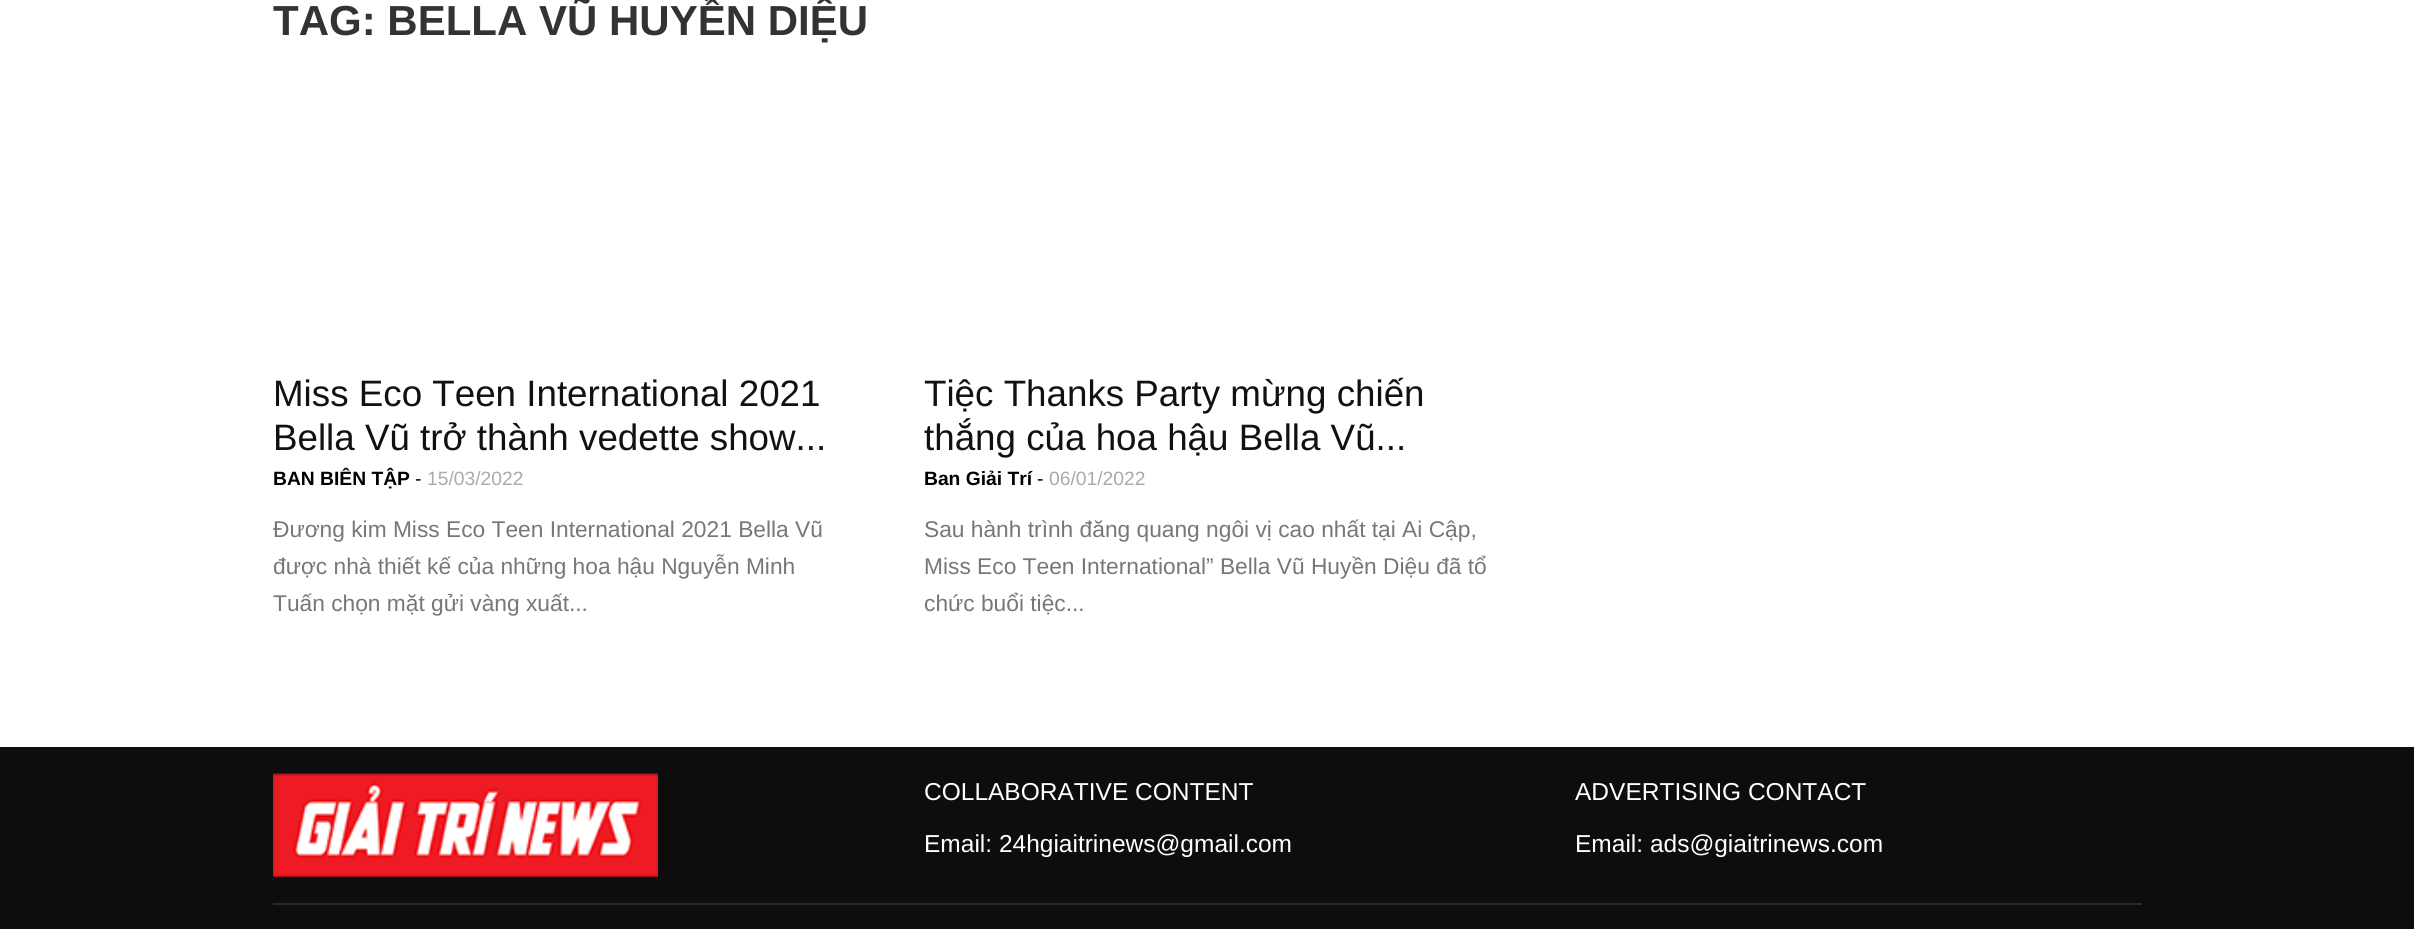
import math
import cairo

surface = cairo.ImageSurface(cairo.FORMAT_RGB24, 2414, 929)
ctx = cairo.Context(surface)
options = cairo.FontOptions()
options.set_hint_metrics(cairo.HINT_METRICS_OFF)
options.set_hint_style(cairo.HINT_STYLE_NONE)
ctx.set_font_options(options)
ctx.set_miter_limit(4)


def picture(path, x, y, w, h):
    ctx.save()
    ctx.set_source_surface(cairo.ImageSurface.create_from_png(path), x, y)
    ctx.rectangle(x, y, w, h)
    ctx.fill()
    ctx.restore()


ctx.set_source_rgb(1, 1, 1)
ctx.paint()
ctx.select_font_face("Liberation Sans", cairo.FONT_SLANT_NORMAL, cairo.FONT_WEIGHT_BOLD)
ctx.set_font_size(42)
ctx.set_source_rgb(0.2, 0.2, 0.2)
ctx.move_to(273, 35)
ctx.show_text("TAG: BELLA VŨ HUYỀN DIỆU")
ctx.select_font_face("Liberation Sans")
ctx.set_font_size(36.75)
ctx.set_source_rgb(0.067, 0.067, 0.067)
ctx.move_to(273, 406)
ctx.show_text("Miss Eco Teen International 2021")
ctx.move_to(273, 450)
ctx.show_text("Bella Vũ trở thành vedette show...")
ctx.select_font_face("Liberation Sans", cairo.FONT_SLANT_NORMAL, cairo.FONT_WEIGHT_BOLD)
ctx.set_font_size(19.25)
ctx.set_source_rgb(0, 0, 0)
ctx.move_to(273, 485)
ctx.show_text("BAN BIÊN TẬP")
ctx.select_font_face("Liberation Sans")
ctx.move_to(415, 485)
ctx.show_text("-")
ctx.set_source_rgb(0.667, 0.667, 0.667)
ctx.move_to(427, 485)
ctx.show_text("15/03/2022")
ctx.set_font_size(22.75)
ctx.set_source_rgb(0.467, 0.467, 0.467)
ctx.move_to(273, 537)
ctx.show_text("Đương kim Miss Eco Teen International 2021 Bella Vũ")
ctx.move_to(273, 574)
ctx.show_text("được nhà thiết kế của những hoa hậu Nguyễn Minh")
ctx.move_to(273, 611)
ctx.show_text("Tuấn chọn mặt gửi vàng xuất...")
ctx.set_font_size(36.75)
ctx.set_source_rgb(0.067, 0.067, 0.067)
ctx.move_to(924, 406)
ctx.show_text("Tiệc Thanks Party mừng chiến")
ctx.move_to(924, 450)
ctx.show_text("thắng của hoa hậu Bella Vũ...")
ctx.select_font_face("Liberation Sans", cairo.FONT_SLANT_NORMAL, cairo.FONT_WEIGHT_BOLD)
ctx.set_font_size(19.25)
ctx.set_source_rgb(0, 0, 0)
ctx.move_to(924, 485)
ctx.show_text("Ban Giải Trí")
ctx.select_font_face("Liberation Sans")
ctx.move_to(1037, 485)
ctx.show_text("-")
ctx.set_source_rgb(0.667, 0.667, 0.667)
ctx.move_to(1049, 485)
ctx.show_text("06/01/2022")
ctx.set_font_size(22.75)
ctx.set_source_rgb(0.467, 0.467, 0.467)
ctx.move_to(924, 537)
ctx.show_text("Sau hành trình đăng quang ngôi vị cao nhất tại Ai Cập,")
ctx.move_to(924, 574)
ctx.show_text("Miss Eco Teen International” Bella Vũ Huyền Diệu đã tổ")
ctx.move_to(924, 611)
ctx.show_text("chức buổi tiệc...")
ctx.set_source_rgb(0.051, 0.051, 0.051)
ctx.rectangle(0, 747, 2414, 182)
ctx.fill()
picture("img1.png", 273, 773, 385, 104)
ctx.set_font_size(24.5)
ctx.set_source_rgb(1, 1, 1)
ctx.move_to(924, 800)
ctx.show_text("COLLABORATIVE CONTENT")
ctx.move_to(924, 852)
ctx.show_text("Email: 24hgiaitrinews@gmail.com")
ctx.move_to(1575, 800)
ctx.show_text("ADVERTISING CONTACT")
ctx.move_to(1575, 852)
ctx.show_text("Email: ads@giaitrinews.com")
ctx.set_source_rgb(0.161, 0.161, 0.161)
ctx.rectangle(273, 903, 1869, 2)
ctx.fill()
surface.write_to_png("page.png")
